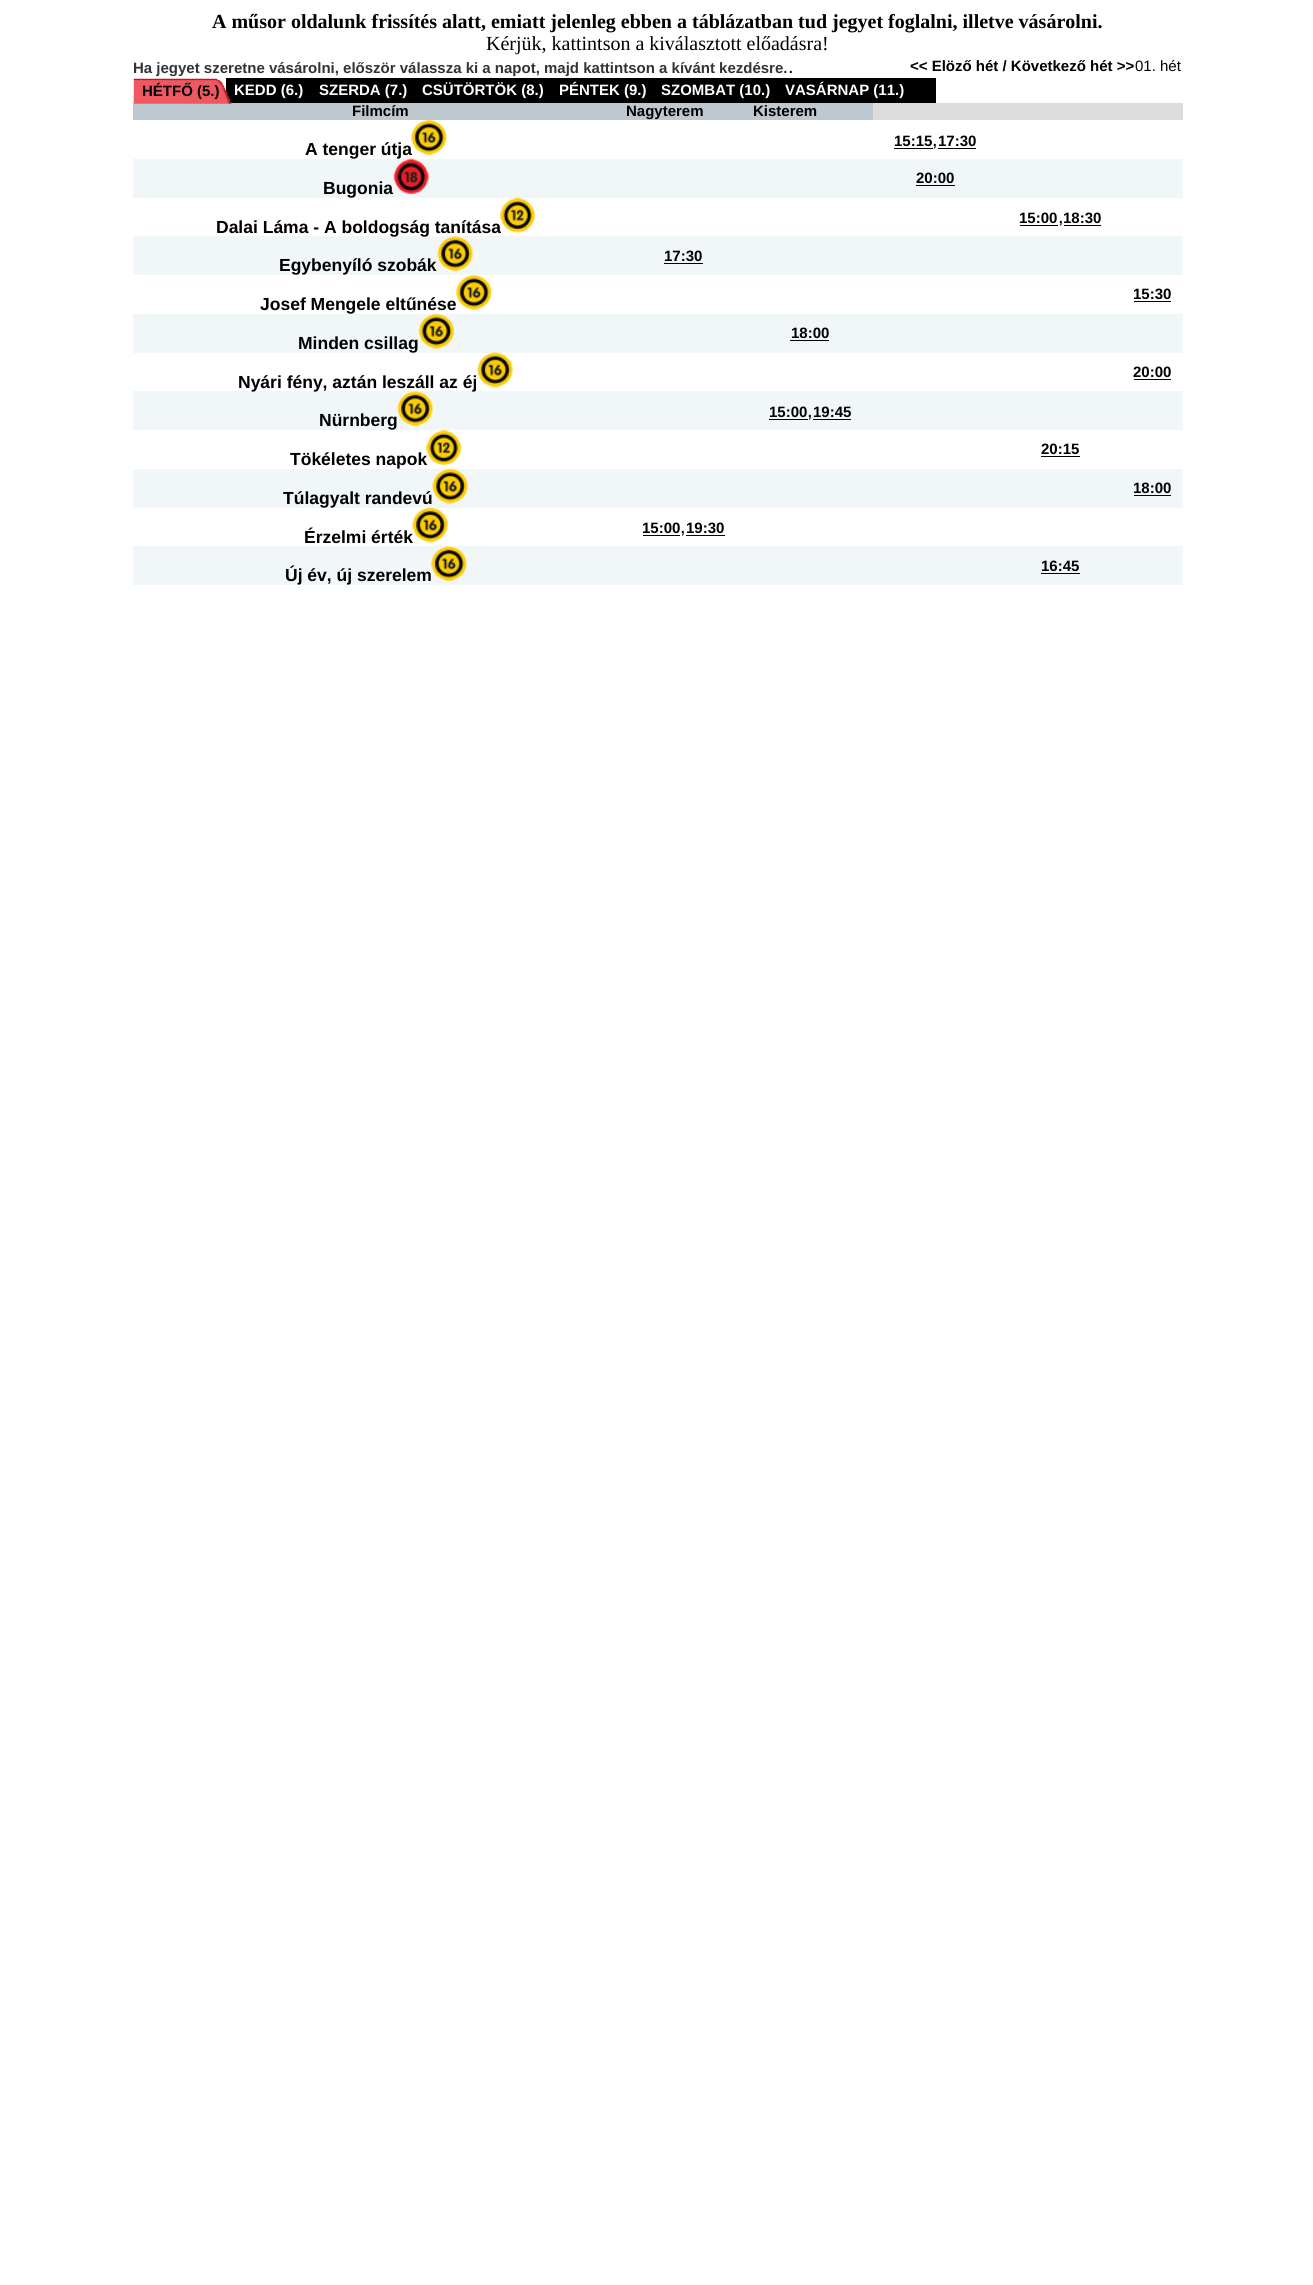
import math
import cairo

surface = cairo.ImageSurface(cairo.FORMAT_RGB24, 1313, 2285)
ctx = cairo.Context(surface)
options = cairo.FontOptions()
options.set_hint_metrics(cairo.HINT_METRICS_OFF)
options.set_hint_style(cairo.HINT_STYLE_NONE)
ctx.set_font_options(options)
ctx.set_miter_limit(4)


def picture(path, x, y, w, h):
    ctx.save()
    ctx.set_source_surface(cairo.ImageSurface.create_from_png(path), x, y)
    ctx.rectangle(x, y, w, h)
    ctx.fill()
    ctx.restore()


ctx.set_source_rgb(1, 1, 1)
ctx.paint()
ctx.select_font_face("Liberation Serif", cairo.FONT_SLANT_NORMAL, cairo.FONT_WEIGHT_BOLD)
ctx.set_font_size(20)
ctx.set_source_rgb(0, 0, 0)
ctx.move_to(212, 28)
ctx.show_text("A műsor oldalunk frissítés alatt, emiatt jelenleg ebben a táblázatban tud jegyet foglalni, illetve vásárolni.")
ctx.select_font_face("Liberation Serif")
ctx.move_to(486, 50)
ctx.show_text("Kérjük, kattintson a kiválasztott előadásra!")
ctx.select_font_face("Liberation Sans", cairo.FONT_SLANT_NORMAL, cairo.FONT_WEIGHT_BOLD)
ctx.set_font_size(15)
ctx.set_source_rgb(0.2, 0.2, 0.2)
ctx.move_to(133, 73)
ctx.show_text("Ha jegyet szeretne vásárolni, először válassza ki a napot, majd kattintson a kívánt kezdésre.")
ctx.select_font_face("Liberation Sans")
ctx.set_font_size(20)
ctx.set_source_rgb(0, 0, 0)
ctx.move_to(788, 73)
ctx.show_text(".")
ctx.select_font_face("Liberation Sans", cairo.FONT_SLANT_NORMAL, cairo.FONT_WEIGHT_BOLD)
ctx.set_font_size(15)
ctx.move_to(910, 71)
ctx.show_text("<< Elöző hét / Következő hét >>")
ctx.select_font_face("Liberation Sans")
ctx.move_to(1135, 71)
ctx.show_text("01. hét")
ctx.rectangle(226, 78, 710, 25)
ctx.fill()
ctx.set_source_rgb(0.745, 0.784, 0.82)
ctx.rectangle(133, 103, 740, 17)
ctx.fill()
picture("img1.png", 133, 78, 99, 26)
ctx.select_font_face("Liberation Sans", cairo.FONT_SLANT_NORMAL, cairo.FONT_WEIGHT_BOLD)
ctx.set_source_rgb(0, 0, 0)
ctx.move_to(142, 96)
ctx.show_text("HÉTFŐ (5.)")
ctx.set_source_rgb(1, 1, 1)
ctx.move_to(234, 95)
ctx.show_text("KEDD (6.)")
ctx.move_to(319, 95)
ctx.show_text("SZERDA (7.)")
ctx.move_to(422, 95)
ctx.show_text("CSÜTÖRTÖK (8.)")
ctx.move_to(559, 95)
ctx.show_text("PÉNTEK (9.)")
ctx.move_to(661, 95)
ctx.show_text("SZOMBAT (10.)")
ctx.move_to(785, 95)
ctx.show_text("VASÁRNAP (11.)")
ctx.set_source_rgb(0.863, 0.863, 0.863)
ctx.rectangle(873, 103, 310, 17)
ctx.fill()
ctx.set_source_rgb(0, 0, 0)
ctx.move_to(352, 116)
ctx.show_text("Filmcím")
ctx.move_to(626, 116)
ctx.show_text("Nagyterem")
ctx.move_to(753, 116)
ctx.show_text("Kisterem")
ctx.set_font_size(17.5)
ctx.move_to(305, 155)
ctx.show_text("A tenger útja")
picture("img2.png", 411, 120, 36, 35)
ctx.set_font_size(15)
ctx.move_to(894, 146)
ctx.show_text("15:15")
ctx.rectangle(894, 148, 39, 1)
ctx.fill()
ctx.select_font_face("Liberation Sans")
ctx.set_font_size(20)
ctx.move_to(932, 146)
ctx.show_text(",")
ctx.select_font_face("Liberation Sans", cairo.FONT_SLANT_NORMAL, cairo.FONT_WEIGHT_BOLD)
ctx.set_font_size(15)
ctx.move_to(938, 146)
ctx.show_text("17:30")
ctx.rectangle(938, 148, 38, 1)
ctx.fill()
ctx.set_source_rgb(0.945, 0.961, 0.969)
ctx.rectangle(133, 159, 1050, 39)
ctx.fill()
ctx.set_source_rgb(0, 0, 0)
ctx.move_to(916, 183)
ctx.show_text("20:00")
ctx.rectangle(916, 185, 39, 1)
ctx.fill()
ctx.set_font_size(17.5)
ctx.move_to(323, 194)
ctx.show_text("Bugonia")
picture("img3.png", 393, 158, 36, 36)
ctx.set_source_rgb(0.945, 0.961, 0.969)
ctx.rectangle(133, 236, 1050, 39)
ctx.fill()
ctx.set_source_rgb(0, 0, 0)
ctx.move_to(216, 233)
ctx.show_text("Dalai Láma - A boldogság tanítása")
picture("img4.png", 500, 197, 35, 36)
ctx.set_font_size(15)
ctx.move_to(1019, 223)
ctx.show_text("15:00")
ctx.rectangle(1020, 225, 38, 1)
ctx.fill()
ctx.select_font_face("Liberation Sans")
ctx.set_font_size(20)
ctx.move_to(1058, 223)
ctx.show_text(",")
ctx.select_font_face("Liberation Sans", cairo.FONT_SLANT_NORMAL, cairo.FONT_WEIGHT_BOLD)
ctx.set_font_size(15)
ctx.move_to(1063, 223)
ctx.show_text("18:30")
ctx.rectangle(1064, 225, 37, 1)
ctx.fill()
ctx.move_to(664, 261)
ctx.show_text("17:30")
ctx.rectangle(664, 263, 39, 1)
ctx.fill()
ctx.set_font_size(17.5)
ctx.move_to(279, 271)
ctx.show_text("Egybenyíló szobák")
picture("img5.png", 437, 236, 36, 36)
ctx.set_font_size(15)
ctx.move_to(1133, 299)
ctx.show_text("15:30")
ctx.rectangle(1134, 301, 37, 1)
ctx.fill()
ctx.set_font_size(17.5)
ctx.move_to(260, 310)
ctx.show_text("Josef Mengele eltűnése")
picture("img6.png", 456, 275, 36, 35)
ctx.set_source_rgb(0.945, 0.961, 0.969)
ctx.rectangle(133, 314, 1050, 39)
ctx.fill()
ctx.set_font_size(15)
ctx.set_source_rgb(0, 0, 0)
ctx.move_to(791, 338)
ctx.show_text("18:00")
ctx.rectangle(790, 340, 39, 1)
ctx.fill()
ctx.set_font_size(17.5)
ctx.move_to(298, 349)
ctx.show_text("Minden csillag")
picture("img7.png", 418, 313, 36, 36)
ctx.set_font_size(15)
ctx.move_to(1133, 377)
ctx.show_text("20:00")
ctx.rectangle(1134, 379, 37, 1)
ctx.fill()
ctx.set_source_rgb(0.945, 0.961, 0.969)
ctx.rectangle(133, 391, 1050, 39)
ctx.fill()
ctx.set_font_size(17.5)
ctx.set_source_rgb(0, 0, 0)
ctx.move_to(238, 388)
ctx.show_text("Nyári fény, aztán leszáll az éj")
picture("img8.png", 477, 352, 36, 36)
ctx.move_to(319, 426)
ctx.show_text("Nürnberg")
picture("img9.png", 397, 391, 36, 36)
ctx.set_font_size(15)
ctx.move_to(769, 417)
ctx.show_text("15:00")
ctx.rectangle(769, 419, 39, 1)
ctx.fill()
ctx.select_font_face("Liberation Sans")
ctx.set_font_size(20)
ctx.move_to(807, 417)
ctx.show_text(",")
ctx.select_font_face("Liberation Sans", cairo.FONT_SLANT_NORMAL, cairo.FONT_WEIGHT_BOLD)
ctx.set_font_size(15)
ctx.move_to(813, 417)
ctx.show_text("19:45")
ctx.rectangle(813, 419, 38, 1)
ctx.fill()
ctx.move_to(1041, 454)
ctx.show_text("20:15")
ctx.rectangle(1041, 456, 39, 1)
ctx.fill()
ctx.set_font_size(17.5)
ctx.move_to(290, 465)
ctx.show_text("Tökéletes napok")
picture("img10.png", 426, 430, 36, 35)
ctx.set_source_rgb(0.945, 0.961, 0.969)
ctx.rectangle(133, 469, 1050, 39)
ctx.fill()
ctx.set_font_size(15)
ctx.set_source_rgb(0, 0, 0)
ctx.move_to(1133, 493)
ctx.show_text("18:00")
ctx.rectangle(1134, 495, 37, 1)
ctx.fill()
ctx.set_font_size(17.5)
ctx.move_to(283, 504)
ctx.show_text("Túlagyalt randevú")
picture("img11.png", 432, 468, 36, 36)
ctx.move_to(304, 543)
ctx.show_text("Érzelmi érték")
picture("img12.png", 412, 507, 36, 36)
ctx.set_font_size(15)
ctx.move_to(642, 533)
ctx.show_text("15:00")
ctx.rectangle(643, 535, 37, 1)
ctx.fill()
ctx.select_font_face("Liberation Sans")
ctx.set_font_size(20)
ctx.move_to(680, 533)
ctx.show_text(",")
ctx.select_font_face("Liberation Sans", cairo.FONT_SLANT_NORMAL, cairo.FONT_WEIGHT_BOLD)
ctx.set_font_size(15)
ctx.move_to(686, 533)
ctx.show_text("19:30")
ctx.rectangle(686, 535, 39, 1)
ctx.fill()
ctx.set_source_rgb(0.945, 0.961, 0.969)
ctx.rectangle(133, 546, 1050, 39)
ctx.fill()
ctx.set_font_size(17.5)
ctx.set_source_rgb(0, 0, 0)
ctx.move_to(285, 581)
ctx.show_text("Új év, új szerelem")
picture("img13.png", 431, 546, 36, 36)
ctx.set_font_size(15)
ctx.move_to(1041, 571)
ctx.show_text("16:45")
ctx.rectangle(1041, 573, 39, 1)
ctx.fill()
surface.write_to_png("page.png")
